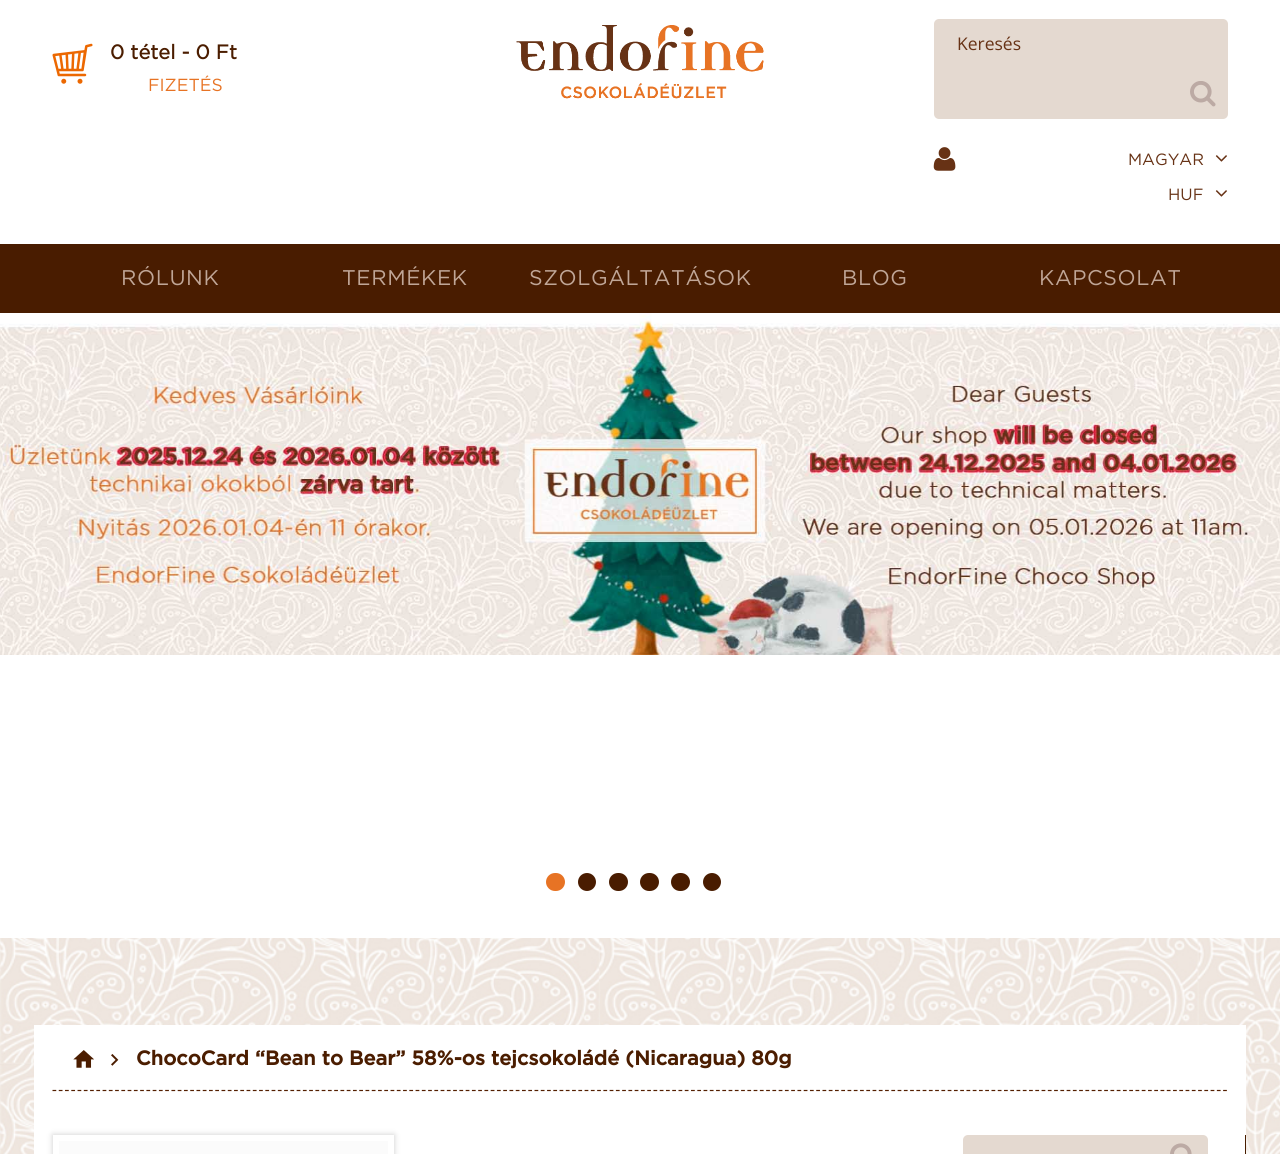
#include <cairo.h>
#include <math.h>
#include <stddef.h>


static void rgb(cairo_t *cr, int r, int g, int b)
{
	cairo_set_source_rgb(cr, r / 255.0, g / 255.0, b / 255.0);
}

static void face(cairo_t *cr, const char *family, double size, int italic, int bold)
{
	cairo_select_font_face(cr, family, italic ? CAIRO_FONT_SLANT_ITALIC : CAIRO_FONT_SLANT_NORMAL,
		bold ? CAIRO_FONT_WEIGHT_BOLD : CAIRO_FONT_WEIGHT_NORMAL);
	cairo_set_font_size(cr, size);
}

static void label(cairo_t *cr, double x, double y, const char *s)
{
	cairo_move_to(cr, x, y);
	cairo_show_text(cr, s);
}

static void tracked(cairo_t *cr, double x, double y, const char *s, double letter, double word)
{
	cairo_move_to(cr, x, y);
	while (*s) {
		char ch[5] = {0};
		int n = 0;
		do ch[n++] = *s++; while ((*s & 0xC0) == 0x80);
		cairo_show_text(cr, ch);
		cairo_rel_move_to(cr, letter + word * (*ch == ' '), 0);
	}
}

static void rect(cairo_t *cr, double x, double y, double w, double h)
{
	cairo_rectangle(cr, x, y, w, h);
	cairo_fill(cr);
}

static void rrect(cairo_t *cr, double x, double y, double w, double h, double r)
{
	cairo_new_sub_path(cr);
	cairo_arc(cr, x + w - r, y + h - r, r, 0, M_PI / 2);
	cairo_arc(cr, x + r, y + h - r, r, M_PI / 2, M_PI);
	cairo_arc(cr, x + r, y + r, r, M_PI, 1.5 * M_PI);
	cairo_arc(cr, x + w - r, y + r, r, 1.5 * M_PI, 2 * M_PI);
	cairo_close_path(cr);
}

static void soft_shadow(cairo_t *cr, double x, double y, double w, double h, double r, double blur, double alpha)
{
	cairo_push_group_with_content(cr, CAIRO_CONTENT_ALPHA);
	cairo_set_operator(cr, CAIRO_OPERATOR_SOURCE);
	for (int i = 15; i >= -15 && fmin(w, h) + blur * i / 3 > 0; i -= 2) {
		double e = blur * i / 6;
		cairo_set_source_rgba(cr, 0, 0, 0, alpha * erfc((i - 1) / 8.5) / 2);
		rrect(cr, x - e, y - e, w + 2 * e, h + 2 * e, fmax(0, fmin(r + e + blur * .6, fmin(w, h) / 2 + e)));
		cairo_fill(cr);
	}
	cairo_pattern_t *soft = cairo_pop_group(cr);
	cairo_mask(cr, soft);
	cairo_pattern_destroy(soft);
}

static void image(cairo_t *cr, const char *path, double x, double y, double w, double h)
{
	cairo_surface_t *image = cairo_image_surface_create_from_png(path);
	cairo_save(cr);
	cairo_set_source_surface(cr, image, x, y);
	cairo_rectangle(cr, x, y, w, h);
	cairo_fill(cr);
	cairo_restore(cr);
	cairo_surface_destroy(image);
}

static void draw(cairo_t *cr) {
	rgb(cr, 255, 255, 255);
	cairo_paint(cr);
	image(cr, "image0.png", 52, 43, 41, 41);
	face(cr, "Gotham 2", 20, 0, 1);
	rgb(cr, 75, 29, 0);
	label(cr, 110, 59, "0 tétel - 0 Ft");
	face(cr, "Gotham", 17.5, 0, 0);
	rgb(cr, 231, 115, 36);
	label(cr, 148, 91, "FIZETÉS");
	image(cr, "image1.png", 516, 25, 248, 74);
	rgb(cr, 228, 217, 208);
	rrect(cr, 934, 19, 294, 100, 5);
	cairo_fill(cr);
	face(cr, "Open Sans", 17.5, 0, 0);
	rgb(cr, 103, 50, 21);
	label(cr, 957, 50, "Keresés");
	image(cr, "image2.png", 1190, 81, 26, 26);
	image(cr, "image3.png", 933, 147, 23, 24);
	face(cr, "Gotham", 16.25, 0, 0);
	label(cr, 1128, 165, "MAGYAR");
	image(cr, "image4.png", 1215, 155, 12, 7);
	label(cr, 1168, 200, "HUF");
	image(cr, "image4.png", 1215, 190, 12, 7);
	rgb(cr, 73, 28, 0);
	rect(cr, 0, 244, 1280, 69);
	face(cr, "Gotham", 21.25, 0, 0);
	rgb(cr, 192, 166, 151);
	tracked(cr, 121, 285, "RÓLUNK", 0.6, 0);
	tracked(cr, 342, 285, "TERMÉKEK", 0.6, 0);
	tracked(cr, 529, 285, "SZOLGÁLTATÁSOK", 0.6, 0);
	tracked(cr, 842, 285, "BLOG", 0.6, 0);
	tracked(cr, 1039, 285, "KAPCSOLAT", 0.6, 0);
	image(cr, "image5.png", 0, 313, 1280, 342);
	rgb(cr, 231, 115, 36);
	rrect(cr, 546, 873, 19, 18, 9);
	cairo_fill(cr);
	rgb(cr, 73, 28, 0);
	cairo_arc(cr, 587, 882, 9, 0, 2 * M_PI);
	cairo_fill(cr);
	rrect(cr, 609, 873, 19, 18, 9);
	cairo_fill(cr);
	rrect(cr, 640, 873, 19, 18, 9);
	cairo_fill(cr);
	rrect(cr, 671, 873, 19, 18, 9);
	cairo_fill(cr);
	cairo_arc(cr, 712, 882, 9, 0, 2 * M_PI);
	cairo_fill(cr);
	image(cr, "image9.png", 0, 938, 1280, 216);
	rgb(cr, 255, 255, 255);
	rect(cr, 34, 1025, 1212, 129);
	cairo_new_path(cr);
	cairo_move_to(cr, 52.5, 1090.5);
	cairo_line_to(cr, 1227.5, 1090.5);
	rgb(cr, 83, 30, 0);
	cairo_set_line_width(cr, 1.2);
	cairo_set_dash(cr, (double[]){3.75, 2.51}, 2, 0);
	cairo_stroke(cr);
	image(cr, "image6.png", 73, 1050, 21, 18);
	image(cr, "image7.png", 111, 1054, 8, 12);
	face(cr, "Gotham", 20, 0, 1);
	rgb(cr, 75, 29, 0);
	label(cr, 136, 1065, "ChocoCard “Bean to Bear” 58%-os tejcsokoládé (Nicaragua) 80g");
	rgb(cr, 204, 204, 204);
	soft_shadow(cr, 53, 1135, 341, 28, 0, 3, 1);
	rgb(cr, 255, 255, 255);
	rect(cr, 53, 1135, 341, 19);
	rgb(cr, 251, 251, 251);
	rect(cr, 59, 1141, 329, 13);
	rgb(cr, 72, 29, 0);
	rect(cr, 1245, 1135, 1, 19);
	rgb(cr, 228, 217, 208);
	rrect(cr, 963, 1135, 245, 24, 5);
	cairo_fill(cr);
	image(cr, "image8.png", 1170, 1143, 22, 11);
}

int main(void) {
	cairo_surface_t *surface = cairo_image_surface_create(CAIRO_FORMAT_RGB24, 1280, 1154);
	cairo_t *cr = cairo_create(surface);
	cairo_font_options_t *options = cairo_font_options_create();
	cairo_font_options_set_hint_metrics(options, CAIRO_HINT_METRICS_OFF);
	cairo_font_options_set_hint_style(options, CAIRO_HINT_STYLE_NONE);
	cairo_set_font_options(cr, options);
	cairo_set_miter_limit(cr, 4);
	draw(cr);
	cairo_surface_write_to_png(surface, "render.png");
	cairo_font_options_destroy(options);
	cairo_destroy(cr);
	cairo_surface_destroy(surface);
	return 0;
}
